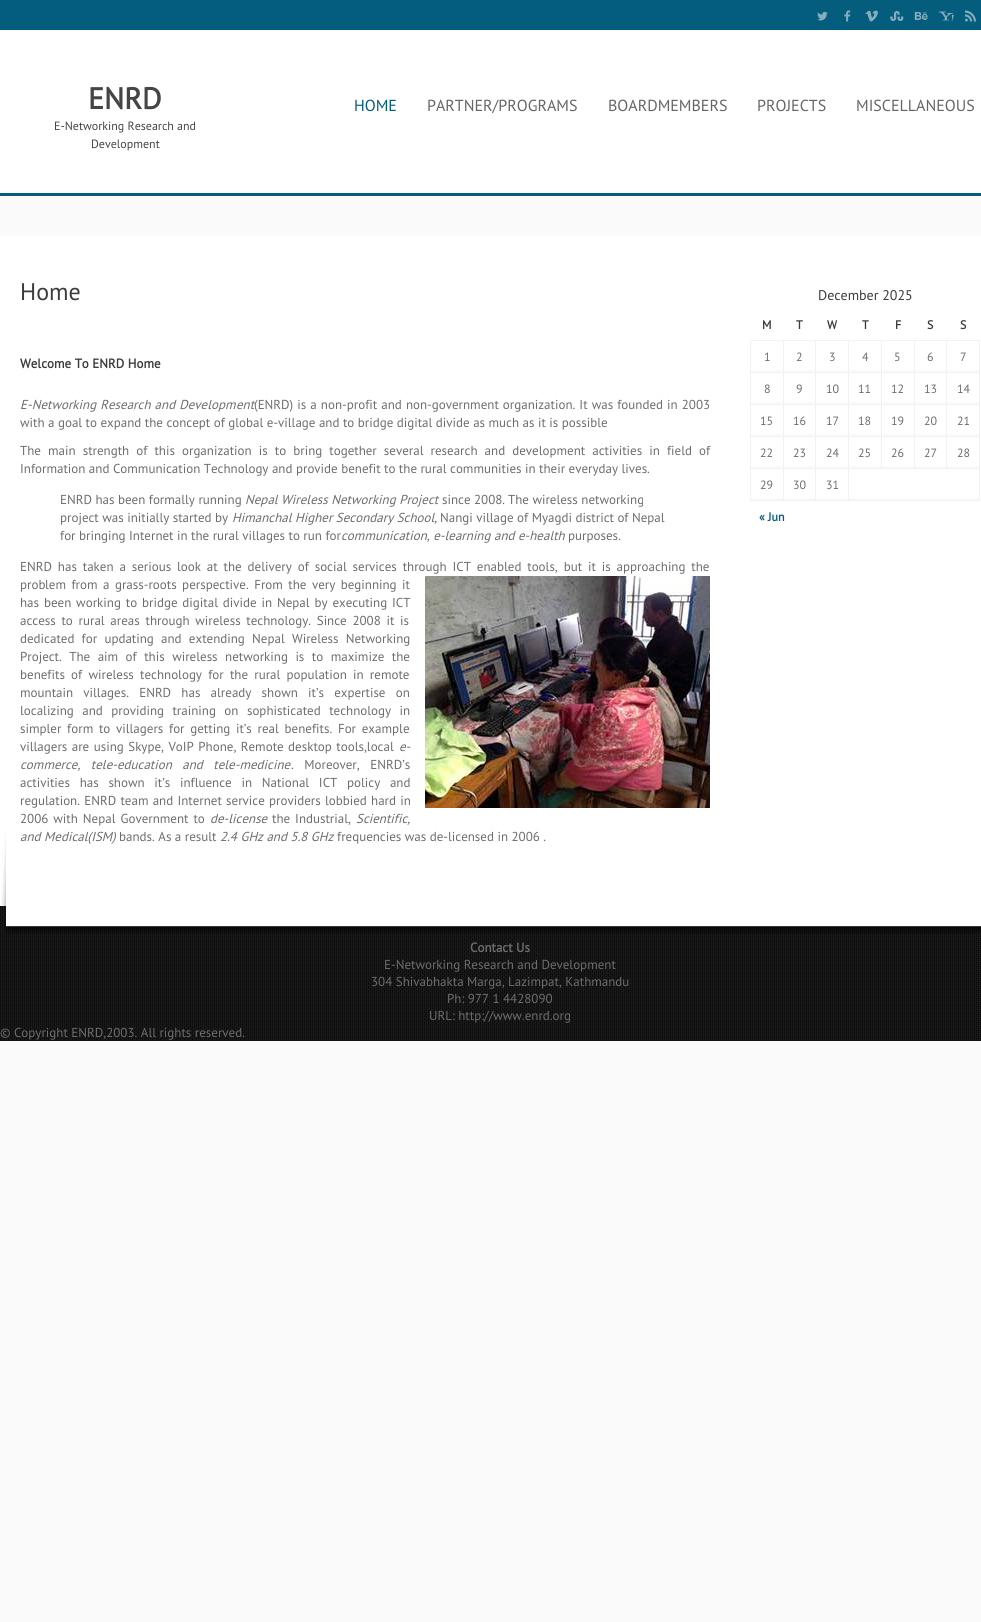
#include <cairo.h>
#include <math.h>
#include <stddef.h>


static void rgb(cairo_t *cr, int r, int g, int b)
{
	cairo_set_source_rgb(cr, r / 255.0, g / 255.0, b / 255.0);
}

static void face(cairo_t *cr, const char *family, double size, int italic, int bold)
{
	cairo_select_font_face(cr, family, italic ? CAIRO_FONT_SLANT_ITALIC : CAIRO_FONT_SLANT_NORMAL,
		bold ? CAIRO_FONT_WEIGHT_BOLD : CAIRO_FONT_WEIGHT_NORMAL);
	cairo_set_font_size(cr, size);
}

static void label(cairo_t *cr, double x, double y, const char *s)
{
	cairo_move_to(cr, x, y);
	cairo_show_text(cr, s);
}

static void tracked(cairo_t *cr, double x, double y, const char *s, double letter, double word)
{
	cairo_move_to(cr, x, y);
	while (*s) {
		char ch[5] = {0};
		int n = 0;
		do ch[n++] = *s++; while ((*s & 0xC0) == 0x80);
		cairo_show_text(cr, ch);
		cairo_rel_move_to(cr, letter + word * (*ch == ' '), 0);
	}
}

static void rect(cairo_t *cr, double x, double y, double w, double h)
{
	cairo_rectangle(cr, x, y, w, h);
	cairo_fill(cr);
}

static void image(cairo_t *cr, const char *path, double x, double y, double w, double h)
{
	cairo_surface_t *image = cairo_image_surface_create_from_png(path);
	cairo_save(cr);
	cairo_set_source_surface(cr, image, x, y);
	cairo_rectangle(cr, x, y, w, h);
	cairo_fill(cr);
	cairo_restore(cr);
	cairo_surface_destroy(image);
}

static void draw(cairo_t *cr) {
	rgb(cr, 250, 250, 250);
	cairo_paint(cr);
	rgb(cr, 5, 93, 126);
	rect(cr, 0, 0, 981, 30);
	image(cr, "image0.png", 817, 11, 11, 10);
	image(cr, "image1.png", 844, 10, 7, 12);
	image(cr, "image2.png", 865, 10, 13, 12);
	image(cr, "image3.png", 890, 11, 14, 11);
	image(cr, "image4.png", 914, 12, 14, 9);
	image(cr, "image5.png", 938, 11, 16, 10);
	image(cr, "image6.png", 965, 10, 11, 12);
	rgb(cr, 255, 255, 255);
	rect(cr, 0, 30, 981, 163);
	face(cr, "PT Sans", 30, 0, 1);
	rgb(cr, 69, 69, 69);
	label(cr, 88, 109, "ENRD");
	face(cr, "PT Sans", 12, 0, 0);
	label(cr, 54, 130, "E-Networking Research and");
	label(cr, 91, 148, "Development");
	face(cr, "PT Sans", 16, 0, 0);
	rgb(cr, 5, 93, 126);
	label(cr, 354, 111, "HOME");
	rgb(cr, 102, 102, 102);
	label(cr, 427, 111, "PARTNER/PROGRAMS");
	label(cr, 608, 111, "BOARDMEMBERS");
	label(cr, 757, 111, "PROJECTS");
	label(cr, 856, 111, "MISCELLANEOUS");
	rgb(cr, 5, 93, 126);
	rect(cr, 0, 193, 981, 3);
	rgb(cr, 255, 255, 255);
	rect(cr, 0, 236, 981, 670);
	face(cr, "PT Sans", 24, 0, 0);
	rgb(cr, 60, 60, 60);
	label(cr, 20, 300, "Home");
	face(cr, "PT Sans", 13, 0, 1);
	label(cr, 20, 368, "Welcome To ENRD Home");
	face(cr, "PT Sans", 13, 1, 0);
	rgb(cr, 110, 109, 109);
	tracked(cr, 20, 409, "E-Networking Research and Developm", 0, 0.6);
	label(cr, 236, 409, "ent");
	face(cr, "PT Sans", 13, 0, 0);
	tracked(cr, 254, 409, "(ENRD) is a non-profit and non-government organization. It was founded in 2003", 0, 0.6);
	label(cr, 20, 427, "with a goal to expand the concept of global e-village and to bridge digital divide as much as it is possible");
	tracked(cr, 20, 455, "The main strength of this organization is to bring together several research and development activities in field of", 0, 3.6);
	label(cr, 20, 473, "Information and Communication Technology and provide benefit to the rural communities in their everyday lives.");
	label(cr, 60, 504, "ENRD has been formally running");
	face(cr, "PT Sans", 13, 1, 0);
	label(cr, 245, 504, "Nepal Wireless Networking Project");
	face(cr, "PT Sans", 13, 0, 0);
	label(cr, 442, 504, "since 2008");
	face(cr, "PT Sans", 13, 1, 0);
	label(cr, 502, 504, ".");
	face(cr, "PT Sans", 13, 0, 0);
	label(cr, 508, 504, "The wireless networking");
	label(cr, 60, 522, "project was initially started by");
	face(cr, "PT Sans", 13, 1, 0);
	label(cr, 232, 522, "Himanchal Higher Secondary School,");
	face(cr, "PT Sans", 13, 0, 0);
	label(cr, 440, 522, "Nangi village of Myagdi district of Nepal");
	label(cr, 60, 540, "for bringing Internet in the rural villages to run for");
	face(cr, "PT Sans", 13, 1, 0);
	label(cr, 341, 540, "communication, e-learning and e-health");
	face(cr, "PT Sans", 13, 0, 0);
	label(cr, 568, 540, "purposes");
	face(cr, "PT Sans", 13, 1, 0);
	label(cr, 618, 540, ".");
	face(cr, "PT Sans", 13, 0, 0);
	tracked(cr, 20, 571, "ENRD has taken a serious look at the delivery of social services through ICT enabled tools, but it is approaching the", 0, 2.4);
	label(cr, 20, 589, "prob");
	tracked(cr, 45, 589, "lem from a grass-roots perspective. From the very beginning it", 0, 2);
	image(cr, "image7.png", 425, 576, 285, 232);
	tracked(cr, 20, 607, "has been working to bridge digital divide in Nepal by executing ICT", 0, 1.4);
	tracked(cr, 20, 625, "access to rural areas through wireless technology. Since 2008 it is", 0, 2.25);
	tracked(cr, 20, 643, "dedicated for updating and extending Nepal Wireless Networking", 0, 3.75);
	tracked(cr, 20, 661, "Project. The aim of this wireless networking is to maximize the", 0, 4);
	tracked(cr, 20, 679, "benefits of wireless technology for the rural population in remote", 0, 2.75);
	tracked(cr, 20, 697, "mountain villages. ENRD has already shown it’s expertise on", 0, 6.75);
	tracked(cr, 20, 715, "localizing and providing training on sophisticated technology in", 0, 5);
	tracked(cr, 20, 733, "simpler form to villagers for getting it’s real benefits. For example", 0, 2.25);
	tracked(cr, 20, 751, "villagers are using Skype, VoIP Phone, Remote desktop tools,local", 0, 1);
	face(cr, "PT Sans", 13, 1, 0);
	label(cr, 399, 751, "e-");
	tracked(cr, 20, 769, "commerce, tele-education and tele-medicine", 0, 7);
	face(cr, "PT Sans", 13, 0, 0);
	tracked(cr, 291, 769, ". Moreover, ENRD’s", 0, 7);
	tracked(cr, 20, 787, "activities has shown it’s influence in National ICT policy and", 0, 6.25);
	tracked(cr, 20, 805, "regulation. ENRD team and Internet service providers lobbied hard in", 0, 0.75);
	tracked(cr, 20, 823, "2006 with Nepal Government to", 0, 1.5);
	face(cr, "PT Sans", 13, 1, 0);
	label(cr, 210, 823, "de-license");
	face(cr, "PT Sans", 13, 0, 0);
	tracked(cr, 272, 823, "the Industrial,", 0, 1.5);
	face(cr, "PT Sans", 13, 1, 0);
	label(cr, 356, 823, "Scientific,");
	label(cr, 20, 841, "and Medical(ISM)");
	face(cr, "PT Sans", 13, 0, 0);
	label(cr, 119, 841, "bands. As a result");
	face(cr, "PT Sans", 13, 1, 0);
	label(cr, 220, 841, "2.4 GHz and 5.8 GHz");
	face(cr, "PT Sans", 13, 0, 0);
	label(cr, 337, 841, "frequencies was de-licensed in 2006 .");
	face(cr, "PT Sans", 14, 0, 0);
	rgb(cr, 60, 60, 60);
	label(cr, 818, 300, "December 2025");
	face(cr, "PT Sans", 12, 0, 1);
	label(cr, 762, 329, "M");
	label(cr, 796, 329, "T");
	label(cr, 827, 329, "W");
	label(cr, 862, 329, "T");
	label(cr, 895, 329, "F");
	label(cr, 927, 329, "S");
	label(cr, 960, 329, "S");
	rgb(cr, 250, 249, 249);
	rect(cr, 751, 370, 229, 2);
	rgb(cr, 243, 242, 242);
	rect(cr, 946, 340, 34, 1);
	rect(cr, 946, 372, 34, 1);
	rgb(cr, 250, 249, 249);
	rect(cr, 751, 402, 229, 2);
	rgb(cr, 243, 242, 242);
	rect(cr, 946, 404, 34, 1);
	rgb(cr, 250, 249, 249);
	rect(cr, 751, 434, 229, 2);
	rgb(cr, 243, 242, 242);
	rect(cr, 946, 436, 34, 1);
	rgb(cr, 250, 249, 249);
	rect(cr, 751, 466, 229, 2);
	rgb(cr, 243, 242, 242);
	rect(cr, 848, 468, 132, 1);
	rect(cr, 946, 436, 1, 33);
	rect(cr, 914, 436, 33, 1);
	rect(cr, 946, 404, 1, 33);
	rect(cr, 914, 404, 33, 1);
	rect(cr, 946, 372, 1, 33);
	rect(cr, 914, 372, 33, 1);
	rect(cr, 946, 340, 1, 33);
	rect(cr, 914, 340, 33, 1);
	rect(cr, 914, 436, 1, 33);
	rect(cr, 881, 436, 34, 1);
	rect(cr, 914, 404, 1, 33);
	rect(cr, 881, 404, 34, 1);
	rect(cr, 914, 372, 1, 33);
	rect(cr, 881, 372, 34, 1);
	rect(cr, 914, 340, 1, 33);
	rect(cr, 881, 340, 34, 1);
	rect(cr, 881, 436, 1, 33);
	rect(cr, 848, 436, 34, 1);
	rect(cr, 881, 404, 1, 33);
	rect(cr, 848, 404, 34, 1);
	rect(cr, 881, 372, 1, 33);
	rect(cr, 848, 372, 34, 1);
	rect(cr, 881, 340, 1, 33);
	rect(cr, 848, 340, 34, 1);
	rgb(cr, 250, 249, 249);
	rect(cr, 751, 498, 229, 2);
	rgb(cr, 243, 242, 242);
	rect(cr, 979, 468, 1, 33);
	rect(cr, 848, 500, 132, 1);
	rect(cr, 848, 468, 1, 33);
	rect(cr, 815, 468, 34, 1);
	rect(cr, 848, 436, 1, 33);
	rect(cr, 815, 436, 34, 1);
	rect(cr, 848, 404, 1, 33);
	rect(cr, 815, 404, 34, 1);
	rect(cr, 848, 372, 1, 33);
	rect(cr, 815, 372, 34, 1);
	rect(cr, 848, 340, 1, 33);
	rect(cr, 815, 340, 34, 1);
	rect(cr, 815, 500, 34, 1);
	rect(cr, 815, 468, 1, 33);
	rect(cr, 783, 468, 33, 1);
	rect(cr, 815, 436, 1, 33);
	rect(cr, 783, 436, 33, 1);
	rect(cr, 815, 404, 1, 33);
	rect(cr, 783, 404, 33, 1);
	rect(cr, 815, 372, 1, 33);
	rect(cr, 783, 372, 33, 1);
	rect(cr, 815, 340, 1, 33);
	rect(cr, 783, 340, 33, 1);
	rect(cr, 783, 500, 33, 1);
	rect(cr, 783, 468, 1, 33);
	rect(cr, 750, 468, 34, 1);
	rect(cr, 783, 436, 1, 33);
	rect(cr, 750, 436, 34, 1);
	rect(cr, 783, 404, 1, 33);
	rect(cr, 750, 404, 34, 1);
	rect(cr, 783, 372, 1, 33);
	rect(cr, 750, 372, 34, 1);
	rect(cr, 783, 340, 1, 33);
	rect(cr, 750, 340, 34, 1);
	rect(cr, 750, 500, 34, 1);
	rect(cr, 750, 468, 1, 33);
	rect(cr, 750, 436, 1, 33);
	rect(cr, 750, 404, 1, 33);
	rect(cr, 750, 372, 1, 33);
	rect(cr, 750, 340, 1, 33);
	face(cr, "PT Sans", 12, 0, 0);
	rgb(cr, 110, 109, 109);
	label(cr, 764, 361, "1");
	label(cr, 796, 361, "2");
	label(cr, 829, 361, "3");
	label(cr, 862, 361, "4");
	label(cr, 894, 361, "5");
	label(cr, 927, 361, "6");
	rgb(cr, 243, 242, 242);
	rect(cr, 979, 436, 1, 33);
	rect(cr, 979, 404, 1, 33);
	rect(cr, 979, 372, 1, 33);
	rect(cr, 979, 340, 1, 33);
	rgb(cr, 110, 109, 109);
	label(cr, 960, 361, "7");
	label(cr, 764, 393, "8");
	label(cr, 796, 393, "9");
	label(cr, 826, 393, "10");
	label(cr, 858, 393, "11");
	label(cr, 891, 393, "12");
	label(cr, 924, 393, "13");
	label(cr, 957, 393, "14");
	label(cr, 760, 425, "15");
	label(cr, 793, 425, "16");
	label(cr, 826, 425, "17");
	label(cr, 858, 425, "18");
	label(cr, 891, 425, "19");
	label(cr, 924, 425, "20");
	label(cr, 957, 425, "21");
	label(cr, 760, 457, "22");
	label(cr, 793, 457, "23");
	label(cr, 826, 457, "24");
	label(cr, 858, 457, "25");
	label(cr, 891, 457, "26");
	label(cr, 924, 457, "27");
	label(cr, 957, 457, "28");
	label(cr, 760, 489, "29");
	label(cr, 793, 489, "30");
	label(cr, 826, 489, "31");
	face(cr, "PT Sans", 12, 0, 1);
	rgb(cr, 5, 93, 126);
	label(cr, 759, 521, "« Jun");
	image(cr, "image8.png", 0, 906, 981, 135);
	image(cr, "image9.png", 4, 906, 977, 28);
	image(cr, "image10.png", 1, 832, 5, 74);
	face(cr, "PT Sans", 13, 0, 1);
	rgb(cr, 110, 109, 109);
	label(cr, 470, 952, "Contact Us");
	face(cr, "PT Sans", 13, 0, 0);
	label(cr, 384, 969, "E-Networking Research and Development");
	label(cr, 371, 986, "304 Shivabhakta Marga, Lazimpat, Kathmandu");
	label(cr, 447, 1003, "Ph: 977 1 4428090");
	label(cr, 429, 1020, "URL: http://www.enrd.org");
	label(cr, 0, 1037, "© Copyright ENRD,2003. All rights reserved.");
}

int main(void) {
	cairo_surface_t *surface = cairo_image_surface_create(CAIRO_FORMAT_RGB24, 981, 1622);
	cairo_t *cr = cairo_create(surface);
	cairo_font_options_t *options = cairo_font_options_create();
	cairo_font_options_set_hint_metrics(options, CAIRO_HINT_METRICS_OFF);
	cairo_font_options_set_hint_style(options, CAIRO_HINT_STYLE_NONE);
	cairo_set_font_options(cr, options);
	cairo_set_miter_limit(cr, 4);
	draw(cr);
	cairo_surface_write_to_png(surface, "render.png");
	cairo_font_options_destroy(options);
	cairo_destroy(cr);
	cairo_surface_destroy(surface);
	return 0;
}
